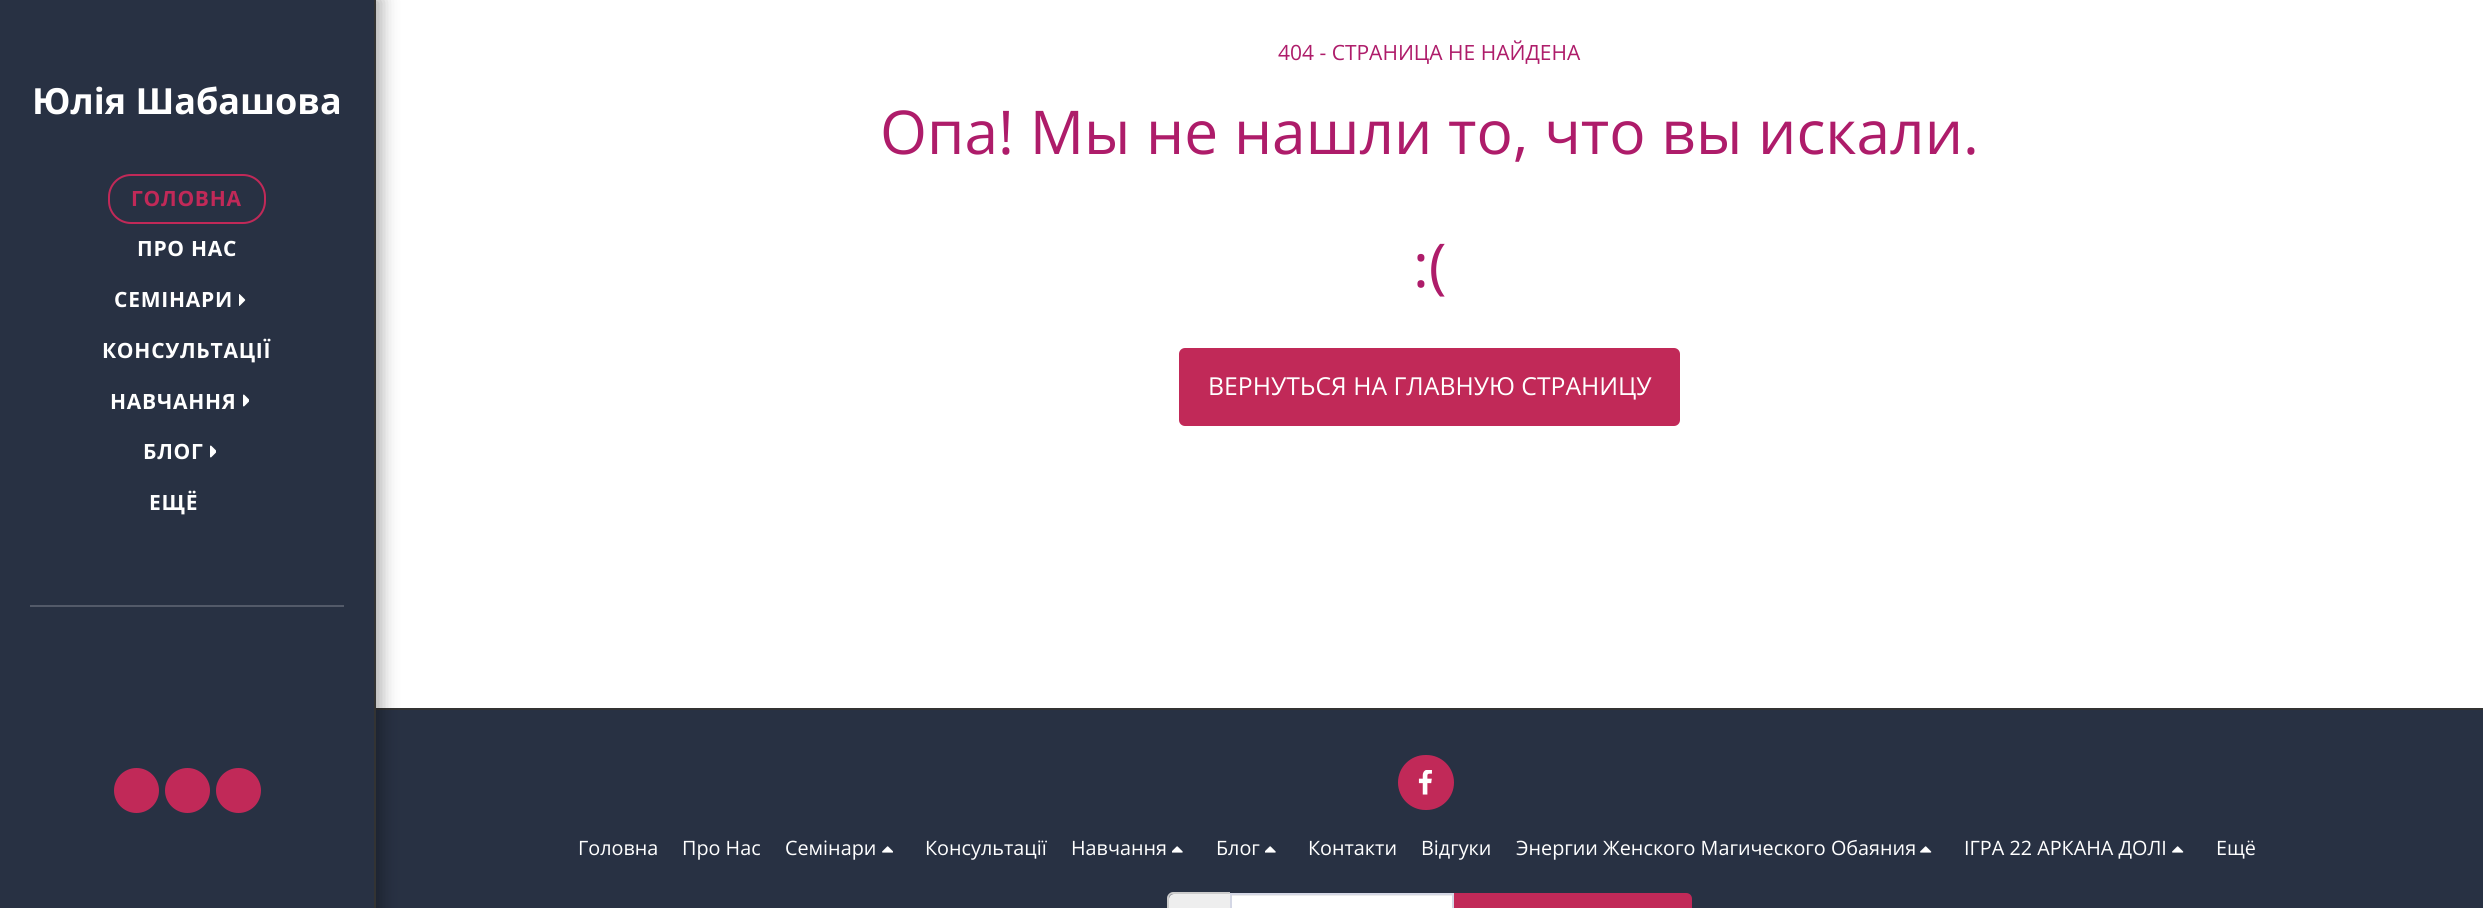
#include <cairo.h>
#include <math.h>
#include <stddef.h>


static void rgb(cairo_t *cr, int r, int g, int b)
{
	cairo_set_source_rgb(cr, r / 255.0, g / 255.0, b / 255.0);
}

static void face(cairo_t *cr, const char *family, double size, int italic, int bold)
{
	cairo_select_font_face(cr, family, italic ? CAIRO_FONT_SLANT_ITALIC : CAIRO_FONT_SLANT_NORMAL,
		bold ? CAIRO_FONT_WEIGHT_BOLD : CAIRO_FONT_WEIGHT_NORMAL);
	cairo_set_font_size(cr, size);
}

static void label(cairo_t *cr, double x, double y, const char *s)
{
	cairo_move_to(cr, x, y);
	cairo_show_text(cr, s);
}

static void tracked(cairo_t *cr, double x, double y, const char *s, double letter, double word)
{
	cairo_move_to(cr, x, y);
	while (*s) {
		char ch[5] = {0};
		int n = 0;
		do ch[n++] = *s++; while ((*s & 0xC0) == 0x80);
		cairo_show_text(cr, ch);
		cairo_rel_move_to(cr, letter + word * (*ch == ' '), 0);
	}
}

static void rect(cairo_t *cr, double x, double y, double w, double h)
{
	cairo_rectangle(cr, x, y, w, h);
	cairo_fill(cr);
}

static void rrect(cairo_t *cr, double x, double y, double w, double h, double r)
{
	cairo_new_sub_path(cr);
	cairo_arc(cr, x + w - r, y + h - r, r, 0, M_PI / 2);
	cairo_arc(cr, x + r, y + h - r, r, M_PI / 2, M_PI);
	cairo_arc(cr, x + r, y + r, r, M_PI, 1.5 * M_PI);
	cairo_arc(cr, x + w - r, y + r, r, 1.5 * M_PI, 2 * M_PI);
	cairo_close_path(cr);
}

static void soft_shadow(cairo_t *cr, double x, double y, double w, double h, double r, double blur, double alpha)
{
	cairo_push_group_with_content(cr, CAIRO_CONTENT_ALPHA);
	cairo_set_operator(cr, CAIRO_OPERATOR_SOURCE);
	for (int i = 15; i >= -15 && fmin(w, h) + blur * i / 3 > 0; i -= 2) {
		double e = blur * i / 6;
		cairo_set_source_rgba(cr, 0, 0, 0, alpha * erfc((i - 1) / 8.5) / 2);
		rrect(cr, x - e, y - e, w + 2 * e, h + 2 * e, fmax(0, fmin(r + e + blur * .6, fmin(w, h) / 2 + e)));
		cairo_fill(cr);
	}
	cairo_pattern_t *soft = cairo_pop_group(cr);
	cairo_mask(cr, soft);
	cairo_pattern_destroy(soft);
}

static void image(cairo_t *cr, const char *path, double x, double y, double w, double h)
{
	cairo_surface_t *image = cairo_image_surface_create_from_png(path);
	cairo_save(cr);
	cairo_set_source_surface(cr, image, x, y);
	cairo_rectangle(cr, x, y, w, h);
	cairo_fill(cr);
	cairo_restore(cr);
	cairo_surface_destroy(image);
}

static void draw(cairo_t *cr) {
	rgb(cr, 255, 255, 255);
	cairo_paint(cr);
	rgb(cr, 51, 51, 51);
	rect(cr, 375, 708, 2108, 2);
	rgb(cr, 40, 49, 67);
	rect(cr, 376, 710, 2107, 198);
	rgb(cr, 0, 0, 0);
	soft_shadow(cr, 0, -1, 381, 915, 0, 9, 0.35);
	rgb(cr, 40, 49, 67);
	rect(cr, 0, 0, 374, 908);
	rgb(cr, 51, 51, 51);
	rect(cr, 374, 0, 2, 908);
	face(cr, "Open Sans", 36, 0, 1);
	rgb(cr, 255, 255, 255);
	label(cr, 32, 114, "Юлія Шабашова");
	rrect(cr, 109, 175, 156, 48, 22);
	rgb(cr, 193, 41, 88);
	cairo_stroke(cr);
	face(cr, "Open Sans", 21, 0, 1);
	tracked(cr, 131, 206, "ГОЛОВНА", 0.75, 0);
	rgb(cr, 255, 255, 255);
	tracked(cr, 137, 256, "ПРО НАС", 0.75, 0);
	tracked(cr, 114, 307, "СЕМІНАРИ", 0.75, 0);
	image(cr, "image0.png", 239, 294, 7, 12);
	tracked(cr, 102, 358, "КОНСУЛЬТАЦІЇ", 0.75, 0);
	tracked(cr, 110, 409, "НАВЧАННЯ", 0.75, 0);
	image(cr, "image1.png", 243, 394, 6, 13);
	tracked(cr, 143, 459, "БЛОГ", 0.75, 0);
	image(cr, "image1.png", 210, 445, 6, 13);
	tracked(cr, 149, 510, "ЕЩЁ", 0.75, 0);
	rgb(cr, 83, 90, 105);
	rect(cr, 30, 605, 314, 2);
	rgb(cr, 193, 41, 88);
	cairo_new_path(cr);
	cairo_arc(cr, 136.5, 790.5, 22.5, 0, 2 * M_PI);
	cairo_fill(cr);
	cairo_arc(cr, 187.5, 790.5, 22.5, 0, 2 * M_PI);
	cairo_fill(cr);
	cairo_arc(cr, 238.5, 790.5, 22.5, 0, 2 * M_PI);
	cairo_fill(cr);
	face(cr, "Open Sans", 21, 0, 0);
	rgb(cr, 174, 28, 106);
	label(cr, 1278, 60, "404 - СТРАНИЦА НЕ НАЙДЕНА");
	face(cr, "Open Sans", 60.4, 0, 0);
	label(cr, 880, 154, "Опа! Мы не нашли то, что вы искали.");
	label(cr, 1413, 287, ":(");
	rgb(cr, 193, 41, 88);
	rrect(cr, 1180, 349, 499, 76, 5);
	cairo_fill_preserve(cr);
	cairo_stroke(cr);
	face(cr, "Open Sans", 24.75, 0, 0);
	rgb(cr, 255, 255, 255);
	label(cr, 1208, 395, "ВЕРНУТЬСЯ НА ГЛАВНУЮ СТРАНИЦУ");
	rgb(cr, 193, 41, 88);
	rrect(cr, 1399, 756, 54, 53, 26.5);
	cairo_fill_preserve(cr);
	cairo_stroke(cr);
	image(cr, "image2.png", 1418, 770, 14, 25);
	face(cr, "Open Sans", 19.8, 0, 0);
	rgb(cr, 255, 255, 255);
	label(cr, 578, 855, "Головна");
	label(cr, 682, 855, "Про Нас");
	label(cr, 785, 855, "Семінари");
	image(cr, "image3.png", 882, 846, 11, 7);
	label(cr, 925, 855, "Консультації");
	label(cr, 1071, 855, "Навчання");
	image(cr, "image4.png", 1172, 846, 11, 7);
	label(cr, 1216, 855, "Блог");
	image(cr, "image4.png", 1265, 846, 11, 7);
	label(cr, 1308, 855, "Контакти");
	label(cr, 1421, 855, "Відгуки");
	label(cr, 1516, 855, "Энергии Женского Магического Обаяния");
	image(cr, "image5.png", 1920, 846, 12, 7);
	label(cr, 1964, 855, "ІГРА 22 АРКАНА ДОЛІ");
	image(cr, "image5.png", 2172, 846, 12, 7);
	label(cr, 2216, 855, "Ещё");
	rgb(cr, 238, 238, 238);
	cairo_new_path(cr);
	cairo_move_to(cr, 1174, 894);
	cairo_line_to(cr, 1230, 894);
	cairo_line_to(cr, 1230, 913);
	cairo_line_to(cr, 1174, 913);
	cairo_curve_to(cr, 1171, 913, 1169, 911, 1169, 908);
	cairo_line_to(cr, 1169, 899);
	cairo_curve_to(cr, 1169, 896, 1171, 894, 1174, 894);
	cairo_close_path(cr);
	cairo_fill(cr);
	rgb(cr, 204, 204, 204);
	cairo_set_fill_rule(cr, CAIRO_FILL_RULE_EVEN_ODD);
	cairo_new_path(cr);
	cairo_move_to(cr, 1173, 892);
	cairo_line_to(cr, 1230, 892);
	cairo_line_to(cr, 1230, 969);
	cairo_line_to(cr, 1173, 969);
	cairo_curve_to(cr, 1170, 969, 1167, 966, 1167, 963);
	cairo_line_to(cr, 1167, 898);
	cairo_curve_to(cr, 1167, 895, 1170, 892, 1173, 892);
	cairo_close_path(cr);
	cairo_move_to(cr, 1173, 894);
	cairo_line_to(cr, 1230, 894);
	cairo_line_to(cr, 1230, 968);
	cairo_curve_to(cr, 1223, 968, 1173, 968, 1170, 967);
	cairo_line_to(cr, 1169, 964);
	cairo_line_to(cr, 1169, 898);
	cairo_line_to(cr, 1170, 895);
	cairo_close_path(cr);
	cairo_fill(cr);
	rgb(cr, 255, 255, 255);
	rect(cr, 1232, 896, 220, 12);
	rgb(cr, 236, 236, 236);
	rect(cr, 1232, 895, 220, 1);
	rgb(cr, 193, 41, 88);
	cairo_new_path(cr);
	cairo_move_to(cr, 1453, 894);
	cairo_line_to(cr, 1686, 894);
	cairo_curve_to(cr, 1689, 894, 1691, 896, 1691, 899);
	cairo_line_to(cr, 1691, 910);
	cairo_curve_to(cr, 1691, 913, 1689, 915, 1686, 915);
	cairo_line_to(cr, 1453, 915);
	cairo_close_path(cr);
	cairo_fill_preserve(cr);
	cairo_stroke(cr);
	cairo_rectangle(cr, 1231, 894, 222, 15);
	rgb(cr, 212, 215, 229);
	cairo_stroke(cr);
}

int main(void) {
	cairo_surface_t *surface = cairo_image_surface_create(CAIRO_FORMAT_RGB24, 2483, 908);
	cairo_t *cr = cairo_create(surface);
	cairo_font_options_t *options = cairo_font_options_create();
	cairo_font_options_set_hint_metrics(options, CAIRO_HINT_METRICS_OFF);
	cairo_font_options_set_hint_style(options, CAIRO_HINT_STYLE_NONE);
	cairo_set_font_options(cr, options);
	cairo_set_miter_limit(cr, 4);
	draw(cr);
	cairo_surface_write_to_png(surface, "render.png");
	cairo_font_options_destroy(options);
	cairo_destroy(cr);
	cairo_surface_destroy(surface);
	return 0;
}
